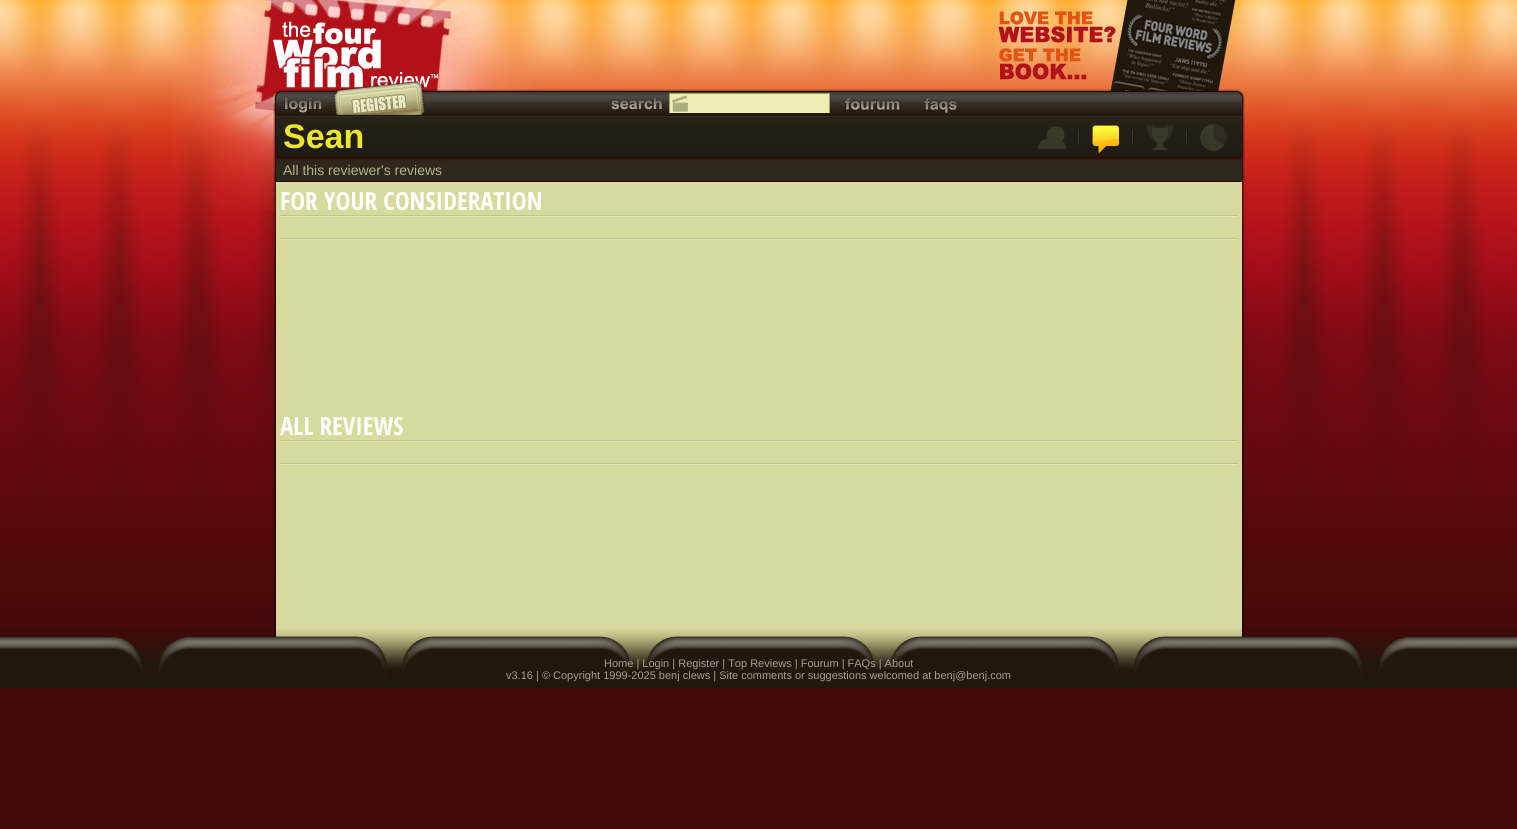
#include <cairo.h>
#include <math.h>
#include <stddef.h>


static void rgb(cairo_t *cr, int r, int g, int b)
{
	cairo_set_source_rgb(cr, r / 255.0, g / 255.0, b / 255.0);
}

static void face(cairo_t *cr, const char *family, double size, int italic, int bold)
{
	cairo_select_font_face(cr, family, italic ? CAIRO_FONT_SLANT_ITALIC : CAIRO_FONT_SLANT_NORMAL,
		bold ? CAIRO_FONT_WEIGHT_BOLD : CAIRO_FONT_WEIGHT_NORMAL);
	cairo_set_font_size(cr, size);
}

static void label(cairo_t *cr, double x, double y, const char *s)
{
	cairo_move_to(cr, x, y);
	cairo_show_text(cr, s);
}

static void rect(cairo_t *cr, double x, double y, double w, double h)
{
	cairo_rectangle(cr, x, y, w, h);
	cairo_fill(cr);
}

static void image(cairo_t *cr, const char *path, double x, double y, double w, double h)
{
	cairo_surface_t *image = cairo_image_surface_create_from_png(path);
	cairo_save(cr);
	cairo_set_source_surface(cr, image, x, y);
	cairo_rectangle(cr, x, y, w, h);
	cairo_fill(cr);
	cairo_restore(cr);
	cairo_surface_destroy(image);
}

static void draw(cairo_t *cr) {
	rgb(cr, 66, 9, 9);
	cairo_paint(cr);
	image(cr, "image0.png", 0, 0, 1517, 627);
	image(cr, "image1.png", 172, 0, 362, 210);
	image(cr, "image2.png", 998, 0, 238, 91);
	image(cr, "image3.png", 273, 89, 10, 93);
	image(cr, "image4.png", 283, 89, 952, 93);
	image(cr, "image5.png", 284, 96, 38, 17);
	image(cr, "image6.png", 329, 81, 103, 34);
	image(cr, "image7.png", 611, 96, 52, 14);
	rgb(cr, 238, 238, 179);
	rect(cr, 670, 94, 159, 19);
	image(cr, "image8.png", 672, 95, 16, 17);
	rgb(cr, 161, 161, 108);
	rect(cr, 669, 93, 161, 1);
	rect(cr, 829, 93, 1, 20);
	rect(cr, 669, 93, 1, 20);
	image(cr, "image9.png", 844, 97, 56, 14);
	image(cr, "image10.png", 924, 97, 33, 16);
	face(cr, "Liberation Sans", 34, 0, 1);
	rgb(cr, 236, 231, 44);
	label(cr, 283, 148, "Sean");
	image(cr, "image11.png", 1038, 126, 28, 23);
	image(cr, "image12.png", 1078, 130, 2, 15);
	image(cr, "image13.png", 1092, 123, 27, 30);
	image(cr, "image12.png", 1132, 130, 2, 15);
	image(cr, "image14.png", 1147, 125, 26, 25);
	image(cr, "image12.png", 1186, 130, 2, 15);
	image(cr, "image15.png", 1200, 124, 27, 27);
	face(cr, "Liberation Sans", 14, 0, 0);
	rgb(cr, 179, 179, 134);
	label(cr, 283, 175, "All this reviewer's reviews");
	image(cr, "image16.png", 1235, 89, 10, 93);
	image(cr, "image17.png", 273, 182, 972, 488);
	face(cr, "Open Sans Condensed", 25, 0, 1);
	rgb(cr, 255, 255, 255);
	label(cr, 280, 210, "FOR YOUR CONSIDERATION");
	image(cr, "image18.png", 280, 215, 958, 25);
	label(cr, 280, 435, "ALL REVIEWS");
	image(cr, "image18.png", 280, 440, 958, 25);
	image(cr, "image19.png", 0, 629, 1517, 59);
	face(cr, "Liberation Sans", 11, 0, 0);
	rgb(cr, 167, 160, 145);
	label(cr, 604, 667, "Home | Login | Register | Top Reviews | Fourum | FAQs | About");
	label(cr, 506, 679, "v3.16 | © Copyright 1999-2025 benj clews | Site comments or suggestions welcomed at benj@benj.com");
}

int main(void) {
	cairo_surface_t *surface = cairo_image_surface_create(CAIRO_FORMAT_RGB24, 1517, 829);
	cairo_t *cr = cairo_create(surface);
	cairo_font_options_t *options = cairo_font_options_create();
	cairo_font_options_set_hint_metrics(options, CAIRO_HINT_METRICS_OFF);
	cairo_font_options_set_hint_style(options, CAIRO_HINT_STYLE_NONE);
	cairo_set_font_options(cr, options);
	cairo_set_miter_limit(cr, 4);
	draw(cr);
	cairo_surface_write_to_png(surface, "render.png");
	cairo_font_options_destroy(options);
	cairo_destroy(cr);
	cairo_surface_destroy(surface);
	return 0;
}
